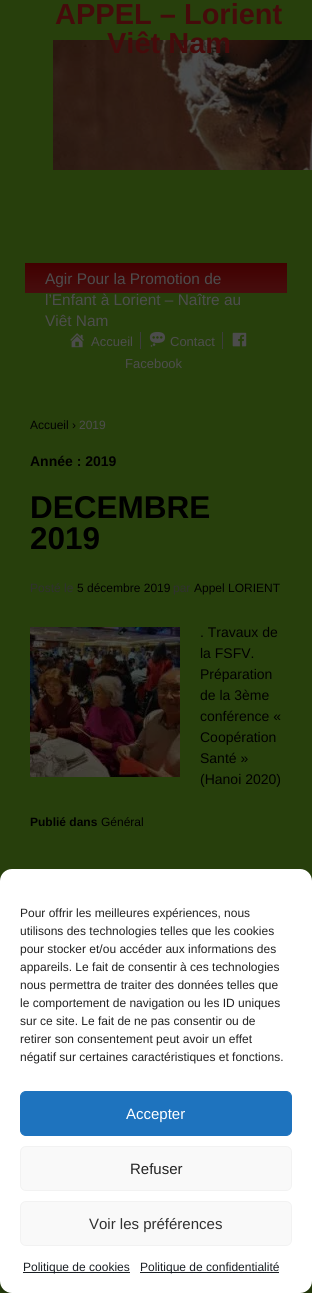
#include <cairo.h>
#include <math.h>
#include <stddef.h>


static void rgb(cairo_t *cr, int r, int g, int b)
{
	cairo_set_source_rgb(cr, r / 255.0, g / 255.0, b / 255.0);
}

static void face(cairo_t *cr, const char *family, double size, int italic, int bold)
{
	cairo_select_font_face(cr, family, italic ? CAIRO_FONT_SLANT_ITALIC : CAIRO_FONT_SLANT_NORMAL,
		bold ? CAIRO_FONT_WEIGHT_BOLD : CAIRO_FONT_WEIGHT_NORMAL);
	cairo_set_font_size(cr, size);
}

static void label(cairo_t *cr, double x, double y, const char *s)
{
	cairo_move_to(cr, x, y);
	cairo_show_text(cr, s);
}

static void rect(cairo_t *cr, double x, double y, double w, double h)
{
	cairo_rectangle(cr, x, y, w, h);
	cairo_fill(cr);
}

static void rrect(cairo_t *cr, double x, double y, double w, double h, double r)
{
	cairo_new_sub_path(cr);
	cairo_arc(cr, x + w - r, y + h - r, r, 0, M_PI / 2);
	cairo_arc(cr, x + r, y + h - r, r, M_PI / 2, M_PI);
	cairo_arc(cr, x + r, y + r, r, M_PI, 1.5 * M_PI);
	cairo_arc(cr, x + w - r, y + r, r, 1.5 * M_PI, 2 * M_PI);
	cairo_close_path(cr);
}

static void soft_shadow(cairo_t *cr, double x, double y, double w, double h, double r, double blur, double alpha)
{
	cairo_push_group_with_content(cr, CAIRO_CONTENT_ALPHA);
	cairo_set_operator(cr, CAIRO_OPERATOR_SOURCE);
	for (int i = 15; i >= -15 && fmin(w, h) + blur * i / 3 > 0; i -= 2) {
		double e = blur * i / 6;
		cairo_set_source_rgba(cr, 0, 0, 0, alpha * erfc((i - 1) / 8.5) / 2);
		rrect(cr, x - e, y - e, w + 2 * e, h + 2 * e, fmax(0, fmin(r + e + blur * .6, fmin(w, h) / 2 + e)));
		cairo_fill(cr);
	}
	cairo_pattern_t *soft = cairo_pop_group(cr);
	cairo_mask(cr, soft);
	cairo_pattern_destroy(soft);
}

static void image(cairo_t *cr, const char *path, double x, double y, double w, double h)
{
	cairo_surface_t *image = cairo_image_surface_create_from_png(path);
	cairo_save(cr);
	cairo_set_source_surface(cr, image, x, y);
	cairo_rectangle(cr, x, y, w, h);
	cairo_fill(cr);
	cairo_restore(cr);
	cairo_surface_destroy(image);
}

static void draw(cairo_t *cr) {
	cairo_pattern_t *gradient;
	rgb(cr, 39, 63, 12);
	cairo_paint(cr);
	face(cr, "Liberation Sans", 29, 0, 1);
	rgb(cr, 69, 11, 11);
	label(cr, 55, 24, "APPEL – Lorient");
	image(cr, "image0.png", 53, 40, 259, 130);
	label(cr, 107, 53, "Viêt Nam");
	gradient = cairo_pattern_create_linear(156, 263, 156, 293);
	cairo_pattern_add_color_stop_rgba(gradient, 0, 0.255, 0, 0, 1);
	cairo_pattern_add_color_stop_rgba(gradient, 1, 0.275, 0.055, 0.055, 1);
	cairo_set_source(cr, gradient);
	cairo_pattern_destroy(gradient);
	rect(cr, 25, 263, 262, 30);
	face(cr, "Liberation Sans", 15.4, 0, 0);
	rgb(cr, 77, 77, 77);
	label(cr, 45, 284, "Agir Pour la Promotion de");
	label(cr, 45, 305, "l’Enfant à Lorient – Naître au");
	label(cr, 45, 326, "Viêt Nam");
	image(cr, "image1.png", 70, 333, 14, 15);
	face(cr, "Liberation Sans", 13, 0, 0);
	label(cr, 91, 346, "Accueil");
	rgb(cr, 61, 61, 61);
	rect(cr, 140, 332, 1, 17);
	image(cr, "image2.png", 149, 331, 17, 16);
	rgb(cr, 77, 77, 77);
	label(cr, 170, 346, "Contact");
	rgb(cr, 61, 61, 61);
	rect(cr, 222, 332, 1, 17);
	image(cr, "image3.png", 232, 332, 15, 15);
	rgb(cr, 77, 77, 77);
	label(cr, 125, 368, "Facebook");
	face(cr, "Liberation Sans", 12, 0, 0);
	rgb(cr, 0, 0, 0);
	label(cr, 30, 429, "Accueil ›");
	rgb(cr, 77, 77, 77);
	label(cr, 79, 429, "2019");
	face(cr, "Liberation Sans", 14, 0, 1);
	rgb(cr, 0, 0, 0);
	label(cr, 30, 466, "Année : 2019");
	face(cr, "Liberation Sans", 31.5, 0, 1);
	label(cr, 30, 518, "DECEMBRE");
	label(cr, 30, 549, "2019");
	face(cr, "Liberation Sans", 12, 0, 0);
	rgb(cr, 48, 48, 48);
	label(cr, 30, 592, "Posté le");
	rgb(cr, 0, 0, 0);
	label(cr, 77, 592, "5 décembre 2019");
	rgb(cr, 48, 48, 48);
	label(cr, 173, 592, "par");
	rgb(cr, 0, 0, 0);
	label(cr, 194, 592, "Appel LORIENT");
	image(cr, "image4.png", 30, 627, 150, 150);
	face(cr, "Liberation Sans", 14, 0, 0);
	label(cr, 200, 637, ". Travaux de");
	label(cr, 200, 658, "la FSFV.");
	label(cr, 200, 679, "Préparation");
	label(cr, 200, 700, "de la 3ème");
	label(cr, 200, 721, "conférence «");
	label(cr, 200, 742, "Coopération");
	label(cr, 200, 763, "Santé »");
	label(cr, 200, 784, "(Hanoi 2020)");
	face(cr, "Liberation Sans", 12, 0, 1);
	label(cr, 30, 826, "Publié dans");
	face(cr, "Liberation Sans", 12, 0, 0);
	label(cr, 101, 826, "Général");
	rgb(cr, 0, 0, 0);
	soft_shadow(cr, 0, 875, 312, 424, 12, 3, 0.23);
	rgb(cr, 255, 255, 255);
	rrect(cr, 0, 869, 312, 424, 12);
	cairo_fill(cr);
	rgb(cr, 34, 34, 34);
	label(cr, 20, 917, "Pour offrir les meilleures expériences, nous");
	label(cr, 20, 935, "utilisons des technologies telles que les cookies");
	label(cr, 20, 953, "pour stocker et/ou accéder aux informations des");
	label(cr, 20, 971, "appareils. Le fait de consentir à ces technologies");
	label(cr, 20, 989, "nous permettra de traiter des données telles que");
	label(cr, 20, 1007, "le comportement de navigation ou les ID uniques");
	label(cr, 20, 1025, "sur ce site. Le fait de ne pas consentir ou de");
	label(cr, 20, 1043, "retirer son consentement peut avoir un effet");
	label(cr, 20, 1061, "négatif sur certaines caractéristiques et fonctions.");
	rgb(cr, 30, 115, 190);
	rrect(cr, 20.5, 1091.5, 271, 44, 5.5);
	cairo_fill_preserve(cr);
	cairo_set_line_width(cr, 1);
	cairo_stroke(cr);
	face(cr, "Liberation Sans", 15, 0, 0);
	rgb(cr, 255, 255, 255);
	label(cr, 126, 1119, "Accepter");
	rgb(cr, 249, 249, 249);
	rrect(cr, 20.5, 1146.5, 271, 44, 5.5);
	cairo_fill_preserve(cr);
	rgb(cr, 242, 242, 242);
	cairo_stroke(cr);
	rgb(cr, 34, 34, 34);
	label(cr, 130, 1174, "Refuser");
	rgb(cr, 249, 249, 249);
	rrect(cr, 20.5, 1201.5, 271, 44, 5.5);
	cairo_fill_preserve(cr);
	rgb(cr, 242, 242, 242);
	cairo_stroke(cr);
	rgb(cr, 48, 48, 48);
	label(cr, 89, 1229, "Voir les préférences");
	rgb(cr, 25, 30, 35);
	rect(cr, 23, 1272, 107, 1);
	face(cr, "Liberation Sans", 12, 0, 0);
	label(cr, 23, 1271, "Politique de cookies");
	rect(cr, 140, 1272, 139, 1);
	label(cr, 140, 1271, "Politique de confidentialité");
}

int main(void) {
	cairo_surface_t *surface = cairo_image_surface_create(CAIRO_FORMAT_RGB24, 312, 1293);
	cairo_t *cr = cairo_create(surface);
	cairo_font_options_t *options = cairo_font_options_create();
	cairo_font_options_set_hint_metrics(options, CAIRO_HINT_METRICS_OFF);
	cairo_font_options_set_hint_style(options, CAIRO_HINT_STYLE_NONE);
	cairo_set_font_options(cr, options);
	cairo_set_miter_limit(cr, 4);
	draw(cr);
	cairo_surface_write_to_png(surface, "render.png");
	cairo_font_options_destroy(options);
	cairo_destroy(cr);
	cairo_surface_destroy(surface);
	return 0;
}
